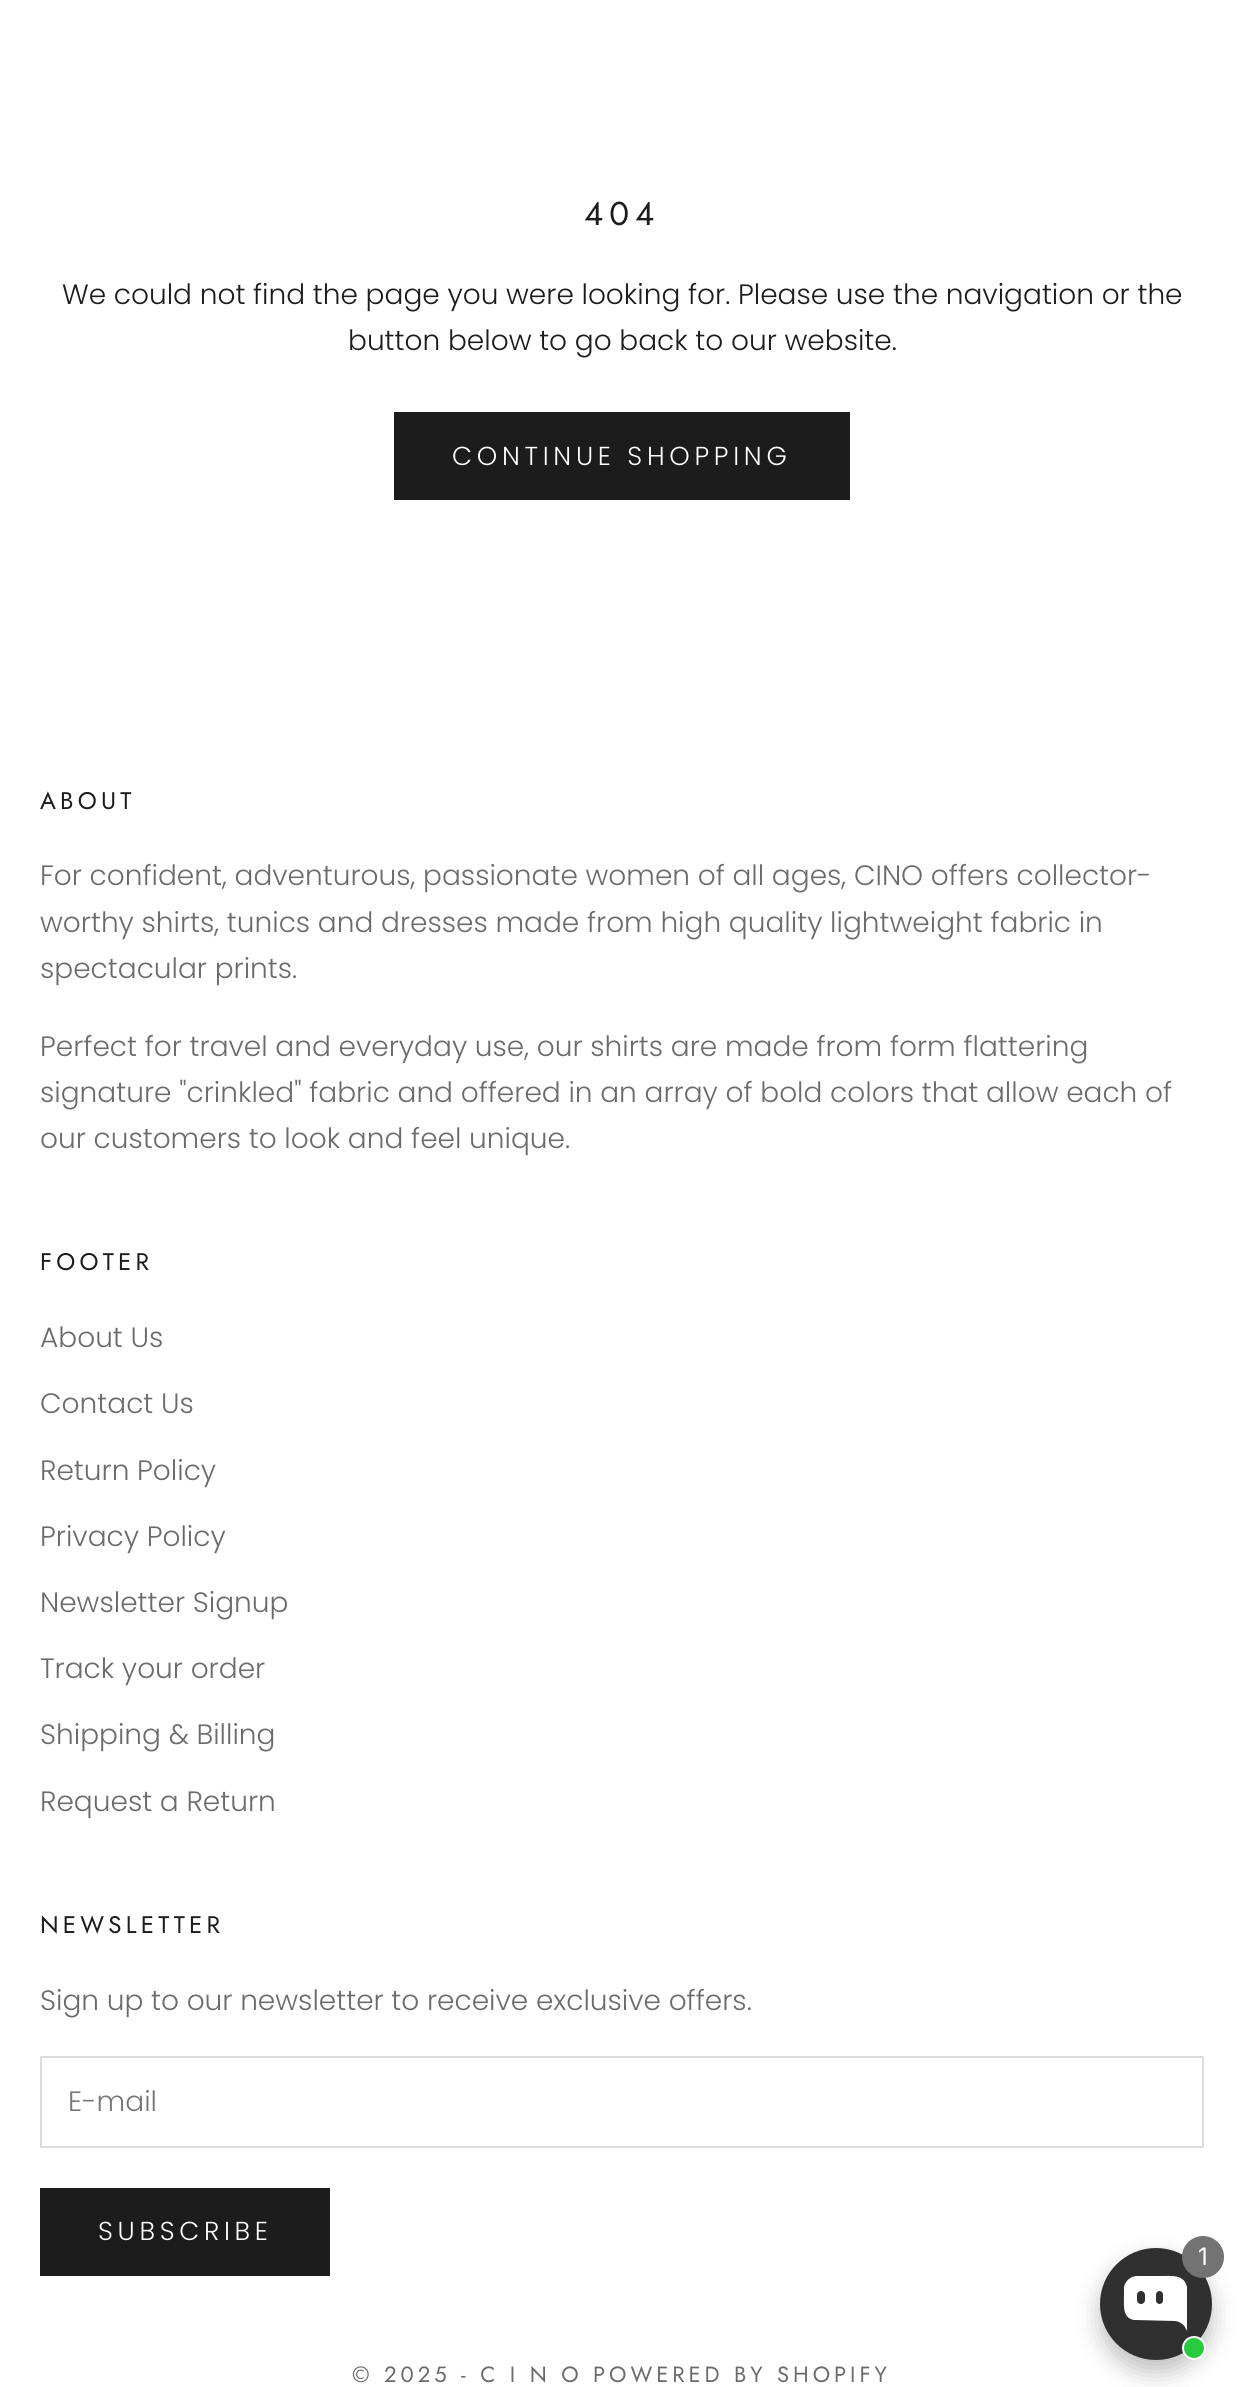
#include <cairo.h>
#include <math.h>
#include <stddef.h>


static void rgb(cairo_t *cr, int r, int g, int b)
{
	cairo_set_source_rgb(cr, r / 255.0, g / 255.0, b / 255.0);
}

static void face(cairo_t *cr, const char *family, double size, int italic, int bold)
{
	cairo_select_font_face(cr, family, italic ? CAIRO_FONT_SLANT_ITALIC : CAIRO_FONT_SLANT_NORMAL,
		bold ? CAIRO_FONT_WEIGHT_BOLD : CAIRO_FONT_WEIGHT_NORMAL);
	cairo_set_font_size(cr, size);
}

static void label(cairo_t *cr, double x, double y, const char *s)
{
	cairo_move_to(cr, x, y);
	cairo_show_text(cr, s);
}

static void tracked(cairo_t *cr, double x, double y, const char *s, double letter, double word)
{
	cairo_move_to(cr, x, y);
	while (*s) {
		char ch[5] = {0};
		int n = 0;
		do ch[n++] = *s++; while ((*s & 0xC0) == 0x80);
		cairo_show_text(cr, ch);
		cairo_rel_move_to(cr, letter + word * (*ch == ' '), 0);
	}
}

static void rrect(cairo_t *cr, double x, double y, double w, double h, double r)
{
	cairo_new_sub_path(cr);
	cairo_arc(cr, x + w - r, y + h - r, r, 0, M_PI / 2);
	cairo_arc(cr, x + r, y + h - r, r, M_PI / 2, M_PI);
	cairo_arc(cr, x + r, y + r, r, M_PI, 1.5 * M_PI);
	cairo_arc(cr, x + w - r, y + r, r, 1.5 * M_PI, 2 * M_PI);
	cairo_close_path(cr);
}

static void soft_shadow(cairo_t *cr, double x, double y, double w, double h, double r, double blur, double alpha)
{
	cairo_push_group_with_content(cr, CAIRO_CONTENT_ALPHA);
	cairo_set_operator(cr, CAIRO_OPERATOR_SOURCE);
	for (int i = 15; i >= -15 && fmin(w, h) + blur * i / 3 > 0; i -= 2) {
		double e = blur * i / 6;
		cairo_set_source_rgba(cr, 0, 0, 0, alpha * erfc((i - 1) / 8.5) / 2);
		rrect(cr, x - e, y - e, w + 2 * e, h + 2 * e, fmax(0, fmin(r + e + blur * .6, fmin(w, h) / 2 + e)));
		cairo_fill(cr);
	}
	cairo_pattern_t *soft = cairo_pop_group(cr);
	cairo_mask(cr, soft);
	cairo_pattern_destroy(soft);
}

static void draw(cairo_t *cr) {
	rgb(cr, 255, 255, 255);
	cairo_paint(cr);
	face(cr, "Jost", 33, 0, 0);
	rgb(cr, 28, 28, 28);
	tracked(cr, 584, 225, "404", 6, 0);
	face(cr, "Poppins Light", 28, 0, 0);
	label(cr, 62, 304, "We could not find the page you were looking for. Please use the navigation or the");
	label(cr, 348, 350, "button below to go back to our website.");
	cairo_rectangle(cr, 395, 413, 454, 86);
	cairo_fill_preserve(cr);
	cairo_stroke(cr);
	face(cr, "Poppins Light", 26, 0, 0);
	rgb(cr, 255, 255, 255);
	tracked(cr, 452, 465, "CONTINUE SHOPPING", 4.7, 0);
	face(cr, "Jost", 24, 0, 0);
	rgb(cr, 28, 28, 28);
	tracked(cr, 40, 809, "ABOUT", 4.25, 0);
	face(cr, "Poppins Light", 28, 0, 0);
	rgb(cr, 107, 107, 107);
	label(cr, 40, 885, "For confident, adventurous, passionate women of all ages, CINO offers collector-");
	label(cr, 40, 932, "worthy shirts, tunics and dresses made from high quality lightweight fabric in");
	label(cr, 40, 978, "spectacular prints.");
	label(cr, 40, 1056, "Perfect for travel and everyday use, our shirts are made from form flattering");
	label(cr, 40, 1102, "signature \"crinkled\" fabric and offered in an array of bold colors that allow each of");
	label(cr, 40, 1148, "our customers to look and feel unique.");
	face(cr, "Jost", 24, 0, 0);
	rgb(cr, 28, 28, 28);
	tracked(cr, 40, 1270, "FOOTER", 4.25, 0);
	face(cr, "Poppins Light", 28, 0, 0);
	rgb(cr, 107, 107, 107);
	label(cr, 40, 1347, "About Us");
	label(cr, 40, 1413, "Contact Us");
	label(cr, 40, 1480, "Return Policy");
	label(cr, 40, 1546, "Privacy Policy");
	label(cr, 40, 1612, "Newsletter Signup");
	label(cr, 40, 1678, "Track your order");
	label(cr, 40, 1744, "Shipping & Billing");
	label(cr, 40, 1811, "Request a Return");
	face(cr, "Jost", 24, 0, 0);
	rgb(cr, 28, 28, 28);
	tracked(cr, 40, 1933, "NEWSLETTER", 4.25, 0);
	face(cr, "Poppins Light", 28, 0, 0);
	rgb(cr, 107, 107, 107);
	label(cr, 40, 2010, "Sign up to our newsletter to receive exclusive offers.");
	cairo_rectangle(cr, 41, 2057, 1162, 90);
	rgb(cr, 221, 221, 221);
	cairo_stroke(cr);
	rgb(cr, 119, 119, 119);
	label(cr, 68, 2111, "E-mail");
	rgb(cr, 28, 28, 28);
	cairo_rectangle(cr, 41, 2189, 288, 86);
	cairo_fill_preserve(cr);
	cairo_stroke(cr);
	face(cr, "Poppins Light", 26, 0, 0);
	rgb(cr, 255, 255, 255);
	tracked(cr, 98, 2240, "SUBSCRIBE", 4.7, 0);
	face(cr, "Jost", 22, 0, 0);
	rgb(cr, 107, 107, 107);
	tracked(cr, 352, 2382, "© 2025 - C I N O POWERED BY SHOPIFY", 3.95, 0);
	rgb(cr, 0, 0, 0);
	soft_shadow(cr, 1100, 2260, 112, 112, 56, 12, 0.25);
	rgb(cr, 48, 48, 48);
	cairo_arc(cr, 1156, 2304, 56, 0, 2 * M_PI);
	cairo_fill(cr);
	rgb(cr, 255, 255, 255);
	cairo_set_fill_rule(cr, CAIRO_FILL_RULE_EVEN_ODD);
	cairo_new_path(cr);
	cairo_move_to(cr, 1137, 2276);
	cairo_curve_to(cr, 1131, 2276, 1125, 2281, 1124, 2287);
	cairo_line_to(cr, 1124, 2295);
	cairo_curve_to(cr, 1124, 2305, 1122, 2318, 1134, 2320);
	cairo_line_to(cr, 1174, 2321);
	cairo_curve_to(cr, 1178, 2321, 1182, 2323, 1185, 2327);
	cairo_line_to(cr, 1187, 2331);
	cairo_line_to(cr, 1187, 2287);
	cairo_curve_to(cr, 1184, 2274, 1171, 2276, 1162, 2276);
	cairo_close_path(cr);
	cairo_fill(cr);
	rgb(cr, 48, 48, 48);
	rrect(cr, 1137, 2291, 8, 13, 4);
	cairo_fill(cr);
	rrect(cr, 1156, 2291, 7, 13, 3.5);
	cairo_fill(cr);
	rgb(cr, 39, 202, 64);
	cairo_arc(cr, 1194, 2348, 11, 0, 2 * M_PI);
	cairo_fill_preserve(cr);
	rgb(cr, 255, 255, 255);
	cairo_stroke(cr);
	rgb(cr, 115, 115, 115);
	cairo_arc(cr, 1203, 2257, 21, 0, 2 * M_PI);
	cairo_fill(cr);
	face(cr, "Inter", 24, 0, 0);
	rgb(cr, 255, 255, 255);
	label(cr, 1198, 2265, "1");
}

int main(void) {
	cairo_surface_t *surface = cairo_image_surface_create(CAIRO_FORMAT_RGB24, 1243, 2387);
	cairo_t *cr = cairo_create(surface);
	cairo_font_options_t *options = cairo_font_options_create();
	cairo_font_options_set_hint_metrics(options, CAIRO_HINT_METRICS_OFF);
	cairo_font_options_set_hint_style(options, CAIRO_HINT_STYLE_NONE);
	cairo_set_font_options(cr, options);
	cairo_set_miter_limit(cr, 4);
	draw(cr);
	cairo_surface_write_to_png(surface, "render.png");
	cairo_font_options_destroy(options);
	cairo_destroy(cr);
	cairo_surface_destroy(surface);
	return 0;
}
